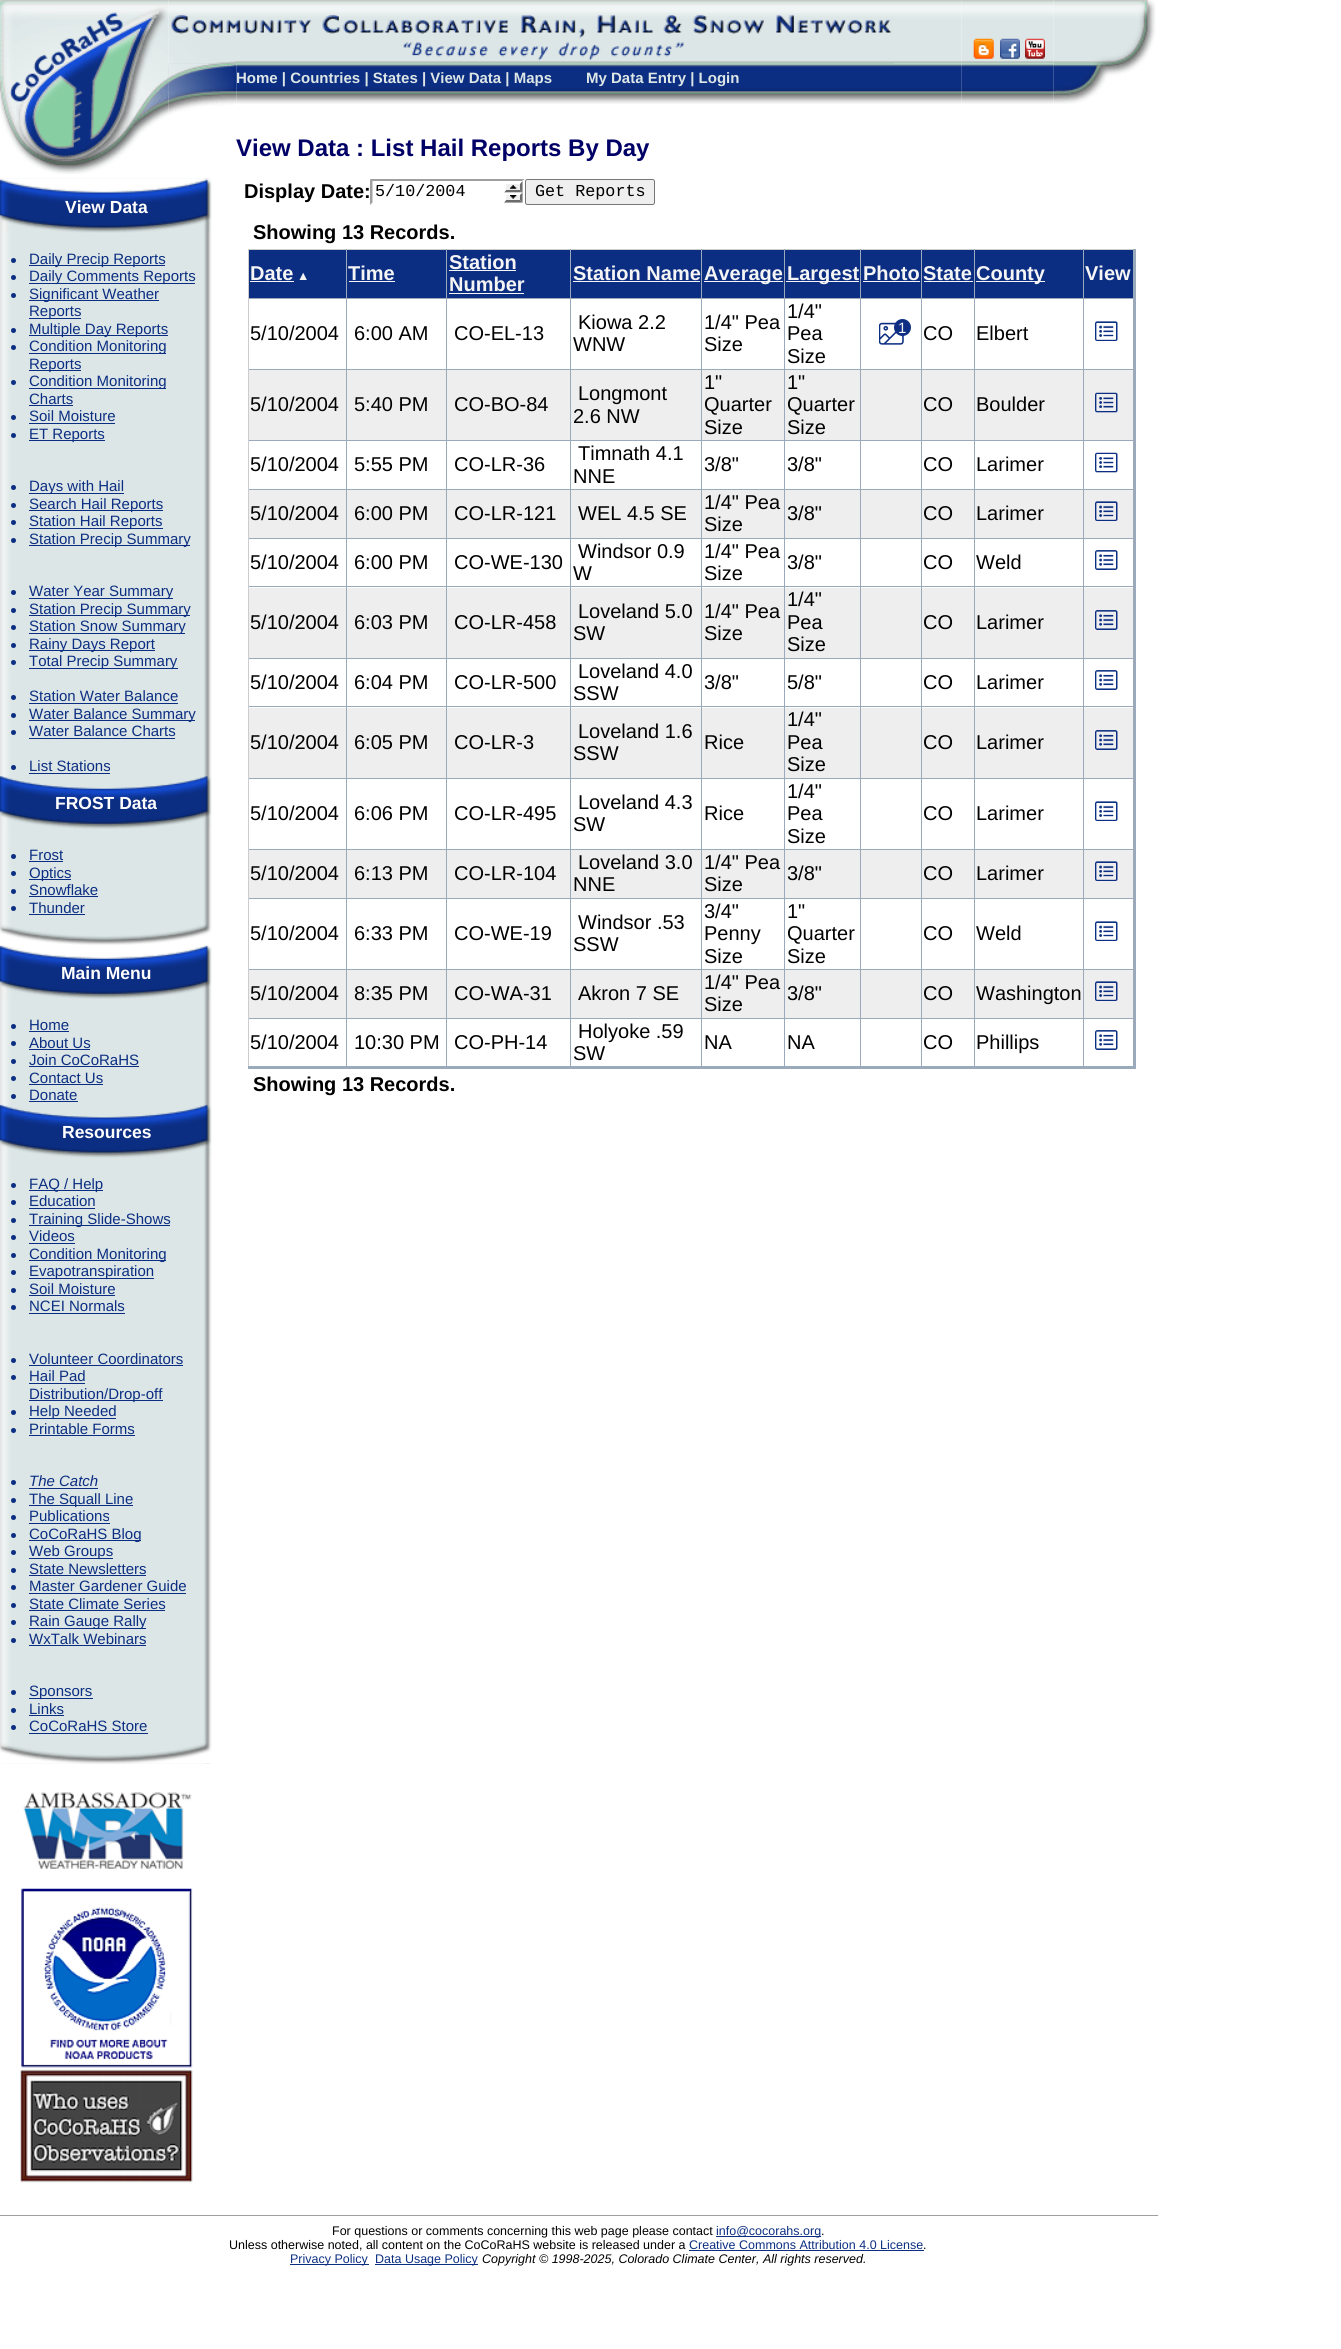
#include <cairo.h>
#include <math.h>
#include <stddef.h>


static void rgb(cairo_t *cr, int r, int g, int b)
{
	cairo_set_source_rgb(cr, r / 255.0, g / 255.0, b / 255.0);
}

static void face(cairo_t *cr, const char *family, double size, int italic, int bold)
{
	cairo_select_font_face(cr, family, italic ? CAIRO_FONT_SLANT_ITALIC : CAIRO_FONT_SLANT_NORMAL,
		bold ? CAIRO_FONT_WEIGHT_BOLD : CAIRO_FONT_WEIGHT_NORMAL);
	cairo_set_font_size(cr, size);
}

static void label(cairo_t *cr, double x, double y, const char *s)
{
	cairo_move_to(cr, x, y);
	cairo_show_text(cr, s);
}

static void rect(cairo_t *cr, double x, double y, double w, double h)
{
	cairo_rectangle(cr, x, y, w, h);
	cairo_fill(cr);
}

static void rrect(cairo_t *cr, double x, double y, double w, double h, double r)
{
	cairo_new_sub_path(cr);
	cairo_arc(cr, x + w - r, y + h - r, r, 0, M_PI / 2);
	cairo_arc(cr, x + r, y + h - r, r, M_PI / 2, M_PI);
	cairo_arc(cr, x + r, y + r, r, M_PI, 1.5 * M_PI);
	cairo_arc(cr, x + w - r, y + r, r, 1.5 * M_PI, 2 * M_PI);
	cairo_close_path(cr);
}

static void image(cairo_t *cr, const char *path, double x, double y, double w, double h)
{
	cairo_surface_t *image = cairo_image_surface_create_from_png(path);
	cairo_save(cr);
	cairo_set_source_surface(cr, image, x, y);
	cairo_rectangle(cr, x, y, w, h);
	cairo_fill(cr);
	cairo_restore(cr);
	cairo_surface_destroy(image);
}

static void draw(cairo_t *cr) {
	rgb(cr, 255, 255, 255);
	cairo_paint(cr);
	image(cr, "image1.png", 168, 0, 794, 64);
	image(cr, "image8.png", 168, 63, 69, 41);
	image(cr, "image0.png", 0, 0, 169, 174);
	image(cr, "image3.png", 961, 0, 93, 64);
	image(cr, "image10.png", 236, 63, 726, 41);
	image(cr, "image2.png", 169, 14, 725, 50);
	image(cr, "image4.png", 973, 38, 21, 21);
	image(cr, "image5.png", 1000, 38, 20, 21);
	image(cr, "image6.png", 1025, 38, 20, 21);
	image(cr, "image11.png", 961, 63, 93, 41);
	image(cr, "image7.png", 1053, 0, 103, 104);
	image(cr, "image9.png", 168, 63, 66, 52);
	face(cr, "Liberation Sans", 15, 0, 1);
	rgb(cr, 220, 230, 230);
	label(cr, 236, 83, "Home | Countries | States | View Data | Maps");
	label(cr, 586, 83, "My Data Entry | Login");
	face(cr, "Liberation Sans", 24, 0, 1);
	rgb(cr, 0, 0, 102);
	label(cr, 236, 156, "View Data : List Hail Reports By Day");
	image(cr, "image12.png", 0, 178, 212, 746);
	image(cr, "image13.png", 0, 178, 212, 55);
	face(cr, "Liberation Sans", 17.5, 0, 1);
	rgb(cr, 255, 255, 255);
	label(cr, 65, 213, "View Data");
	rgb(cr, 12, 46, 130);
	cairo_new_path(cr);
	cairo_arc(cr, 13.5, 260.5, 2.5, 0, 2 * M_PI);
	cairo_fill(cr);
	rect(cr, 29, 265, 136, 1);
	face(cr, "Liberation Sans", 15, 0, 0);
	label(cr, 29, 264, "Daily Precip Reports");
	cairo_new_path(cr);
	cairo_arc(cr, 13.5, 277.5, 2.5, 0, 2 * M_PI);
	cairo_fill(cr);
	rect(cr, 29, 283, 166, 1);
	label(cr, 29, 281, "Daily Comments Reports");
	cairo_new_path(cr);
	cairo_arc(cr, 13.5, 295.5, 2.5, 0, 2 * M_PI);
	cairo_fill(cr);
	rect(cr, 29, 300, 130, 1);
	label(cr, 29, 299, "Significant Weather");
	rect(cr, 29, 318, 52, 1);
	label(cr, 29, 316, "Reports");
	cairo_new_path(cr);
	cairo_arc(cr, 13.5, 330.5, 2.5, 0, 2 * M_PI);
	cairo_fill(cr);
	rect(cr, 29, 335, 139, 1);
	label(cr, 29, 334, "Multiple Day Reports");
	cairo_new_path(cr);
	cairo_arc(cr, 13.5, 347.5, 2.5, 0, 2 * M_PI);
	cairo_fill(cr);
	rect(cr, 29, 353, 137, 1);
	label(cr, 29, 351, "Condition Monitoring");
	rect(cr, 29, 370, 52, 1);
	label(cr, 29, 369, "Reports");
	cairo_new_path(cr);
	cairo_arc(cr, 13.5, 382.5, 2.5, 0, 2 * M_PI);
	cairo_fill(cr);
	rect(cr, 29, 388, 137, 1);
	label(cr, 29, 386, "Condition Monitoring");
	label(cr, 29, 404, "Charts");
	rect(cr, 29, 405, 44, 1);
	cairo_new_path(cr);
	cairo_arc(cr, 13.5, 417.5, 2.5, 0, 2 * M_PI);
	cairo_fill(cr);
	label(cr, 29, 421, "Soil Moisture");
	rect(cr, 29, 423, 86, 1);
	cairo_new_path(cr);
	cairo_arc(cr, 13.5, 435.5, 2.5, 0, 2 * M_PI);
	cairo_fill(cr);
	rect(cr, 29, 440, 76, 1);
	label(cr, 29, 439, "ET Reports");
	cairo_new_path(cr);
	cairo_arc(cr, 13.5, 487.5, 2.5, 0, 2 * M_PI);
	cairo_fill(cr);
	rect(cr, 29, 493, 95, 1);
	label(cr, 29, 491, "Days with Hail");
	cairo_new_path(cr);
	cairo_arc(cr, 13.5, 505.5, 2.5, 0, 2 * M_PI);
	cairo_fill(cr);
	rect(cr, 29, 510, 134, 1);
	label(cr, 29, 509, "Search Hail Reports");
	cairo_new_path(cr);
	cairo_arc(cr, 13.5, 522.5, 2.5, 0, 2 * M_PI);
	cairo_fill(cr);
	rect(cr, 29, 528, 134, 1);
	label(cr, 29, 526, "Station Hail Reports");
	cairo_new_path(cr);
	cairo_arc(cr, 13.5, 540.5, 2.5, 0, 2 * M_PI);
	cairo_fill(cr);
	rect(cr, 29, 545, 161, 1);
	label(cr, 29, 544, "Station Precip Summary");
	cairo_new_path(cr);
	cairo_arc(cr, 13.5, 592.5, 2.5, 0, 2 * M_PI);
	cairo_fill(cr);
	rect(cr, 29, 598, 144, 1);
	label(cr, 29, 596, "Water Year Summary");
	cairo_new_path(cr);
	cairo_arc(cr, 13.5, 610.5, 2.5, 0, 2 * M_PI);
	cairo_fill(cr);
	rect(cr, 29, 615, 161, 1);
	label(cr, 29, 614, "Station Precip Summary");
	cairo_new_path(cr);
	cairo_arc(cr, 13.5, 627.5, 2.5, 0, 2 * M_PI);
	cairo_fill(cr);
	rect(cr, 29, 633, 156, 1);
	label(cr, 29, 631, "Station Snow Summary");
	cairo_new_path(cr);
	cairo_arc(cr, 13.5, 645.5, 2.5, 0, 2 * M_PI);
	cairo_fill(cr);
	rect(cr, 29, 650, 126, 1);
	label(cr, 29, 649, "Rainy Days Report");
	cairo_new_path(cr);
	cairo_arc(cr, 13.5, 662.5, 2.5, 0, 2 * M_PI);
	cairo_fill(cr);
	rect(cr, 29, 668, 149, 1);
	label(cr, 29, 666, "Total Precip Summary");
	cairo_new_path(cr);
	cairo_arc(cr, 13.5, 697.5, 2.5, 0, 2 * M_PI);
	cairo_fill(cr);
	label(cr, 29, 701, "Station Water Balance");
	rect(cr, 29, 703, 149, 1);
	cairo_new_path(cr);
	cairo_arc(cr, 13.5, 715.5, 2.5, 0, 2 * M_PI);
	cairo_fill(cr);
	rect(cr, 29, 720, 166, 1);
	label(cr, 29, 719, "Water Balance Summary");
	cairo_new_path(cr);
	cairo_arc(cr, 13.5, 732.5, 2.5, 0, 2 * M_PI);
	cairo_fill(cr);
	label(cr, 29, 736, "Water Balance Charts");
	rect(cr, 29, 738, 146, 1);
	cairo_new_path(cr);
	cairo_arc(cr, 13.5, 767.5, 2.5, 0, 2 * M_PI);
	cairo_fill(cr);
	label(cr, 29, 771, "List Stations");
	rect(cr, 29, 773, 81, 1);
	image(cr, "image14.png", 0, 775, 212, 54);
	face(cr, "Liberation Sans", 17.5, 0, 1);
	rgb(cr, 255, 255, 255);
	label(cr, 55, 809, "FROST Data");
	rgb(cr, 12, 46, 130);
	cairo_new_path(cr);
	cairo_arc(cr, 13.5, 856.5, 2.5, 0, 2 * M_PI);
	cairo_fill(cr);
	face(cr, "Liberation Sans", 15, 0, 0);
	label(cr, 29, 860, "Frost");
	rect(cr, 29, 861, 34, 1);
	cairo_new_path(cr);
	cairo_arc(cr, 13.5, 873.5, 2.5, 0, 2 * M_PI);
	cairo_fill(cr);
	rect(cr, 29, 879, 42, 1);
	label(cr, 29, 878, "Optics");
	cairo_new_path(cr);
	cairo_arc(cr, 13.5, 891.5, 2.5, 0, 2 * M_PI);
	cairo_fill(cr);
	label(cr, 29, 895, "Snowflake");
	rect(cr, 29, 896, 69, 1);
	cairo_new_path(cr);
	cairo_arc(cr, 13.5, 908.5, 2.5, 0, 2 * M_PI);
	cairo_fill(cr);
	label(cr, 29, 913, "Thunder");
	rect(cr, 29, 914, 56, 1);
	image(cr, "image15.png", 0, 924, 212, 21);
	image(cr, "image16.png", 0, 998, 212, 766);
	image(cr, "image17.png", 0, 945, 212, 54);
	face(cr, "Liberation Sans", 17.5, 0, 1);
	rgb(cr, 255, 255, 255);
	label(cr, 61, 979, "Main Menu");
	rgb(cr, 12, 46, 130);
	cairo_new_path(cr);
	cairo_arc(cr, 13.5, 1026.5, 2.5, 0, 2 * M_PI);
	cairo_fill(cr);
	face(cr, "Liberation Sans", 15, 0, 0);
	label(cr, 29, 1030, "Home");
	rect(cr, 29, 1031, 40, 1);
	cairo_new_path(cr);
	cairo_arc(cr, 13.5, 1043.5, 2.5, 0, 2 * M_PI);
	cairo_fill(cr);
	label(cr, 29, 1048, "About Us");
	rect(cr, 29, 1049, 61, 1);
	cairo_new_path(cr);
	cairo_arc(cr, 13.5, 1061.5, 2.5, 0, 2 * M_PI);
	cairo_fill(cr);
	label(cr, 29, 1065, "Join CoCoRaHS");
	rect(cr, 29, 1066, 110, 1);
	cairo_new_path(cr);
	cairo_arc(cr, 13.5, 1078.5, 2.5, 0, 2 * M_PI);
	cairo_fill(cr);
	label(cr, 29, 1083, "Contact Us");
	rect(cr, 29, 1084, 74, 1);
	cairo_new_path(cr);
	cairo_arc(cr, 13.5, 1096.5, 2.5, 0, 2 * M_PI);
	cairo_fill(cr);
	label(cr, 29, 1100, "Donate");
	rect(cr, 29, 1101, 49, 1);
	image(cr, "image18.png", 0, 1104, 212, 54);
	face(cr, "Liberation Sans", 17.5, 0, 1);
	rgb(cr, 255, 255, 255);
	label(cr, 62, 1138, "Resources");
	rgb(cr, 12, 46, 130);
	cairo_new_path(cr);
	cairo_arc(cr, 13.5, 1185.5, 2.5, 0, 2 * M_PI);
	cairo_fill(cr);
	rect(cr, 29, 1190, 74, 1);
	face(cr, "Liberation Sans", 15, 0, 0);
	label(cr, 29, 1189, "FAQ / Help");
	cairo_new_path(cr);
	cairo_arc(cr, 13.5, 1202.5, 2.5, 0, 2 * M_PI);
	cairo_fill(cr);
	label(cr, 29, 1206, "Education");
	rect(cr, 29, 1208, 66, 1);
	cairo_new_path(cr);
	cairo_arc(cr, 13.5, 1220.5, 2.5, 0, 2 * M_PI);
	cairo_fill(cr);
	rect(cr, 29, 1225, 141, 1);
	label(cr, 29, 1224, "Training Slide-Shows");
	cairo_new_path(cr);
	cairo_arc(cr, 13.5, 1237.5, 2.5, 0, 2 * M_PI);
	cairo_fill(cr);
	label(cr, 29, 1241, "Videos");
	rect(cr, 29, 1243, 46, 1);
	cairo_new_path(cr);
	cairo_arc(cr, 13.5, 1255.5, 2.5, 0, 2 * M_PI);
	cairo_fill(cr);
	rect(cr, 29, 1260, 137, 1);
	label(cr, 29, 1259, "Condition Monitoring");
	cairo_new_path(cr);
	cairo_arc(cr, 13.5, 1272.5, 2.5, 0, 2 * M_PI);
	cairo_fill(cr);
	rect(cr, 29, 1278, 125, 1);
	label(cr, 29, 1276, "Evapotranspiration");
	cairo_new_path(cr);
	cairo_arc(cr, 13.5, 1290.5, 2.5, 0, 2 * M_PI);
	cairo_fill(cr);
	label(cr, 29, 1294, "Soil Moisture");
	rect(cr, 29, 1295, 86, 1);
	cairo_new_path(cr);
	cairo_arc(cr, 13.5, 1307.5, 2.5, 0, 2 * M_PI);
	cairo_fill(cr);
	label(cr, 29, 1311, "NCEI Normals");
	rect(cr, 29, 1313, 96, 1);
	cairo_new_path(cr);
	cairo_arc(cr, 13.5, 1360.5, 2.5, 0, 2 * M_PI);
	cairo_fill(cr);
	label(cr, 29, 1364, "Volunteer Coordinators");
	rect(cr, 29, 1365, 154, 1);
	cairo_new_path(cr);
	cairo_arc(cr, 13.5, 1377.5, 2.5, 0, 2 * M_PI);
	cairo_fill(cr);
	label(cr, 29, 1381, "Hail Pad");
	rect(cr, 29, 1383, 56, 1);
	rect(cr, 29, 1400, 134, 1);
	label(cr, 29, 1399, "Distribution/Drop-off");
	cairo_new_path(cr);
	cairo_arc(cr, 13.5, 1412.5, 2.5, 0, 2 * M_PI);
	cairo_fill(cr);
	rect(cr, 29, 1418, 87, 1);
	label(cr, 29, 1416, "Help Needed");
	cairo_new_path(cr);
	cairo_arc(cr, 13.5, 1430.5, 2.5, 0, 2 * M_PI);
	cairo_fill(cr);
	label(cr, 29, 1434, "Printable Forms");
	rect(cr, 29, 1435, 106, 1);
	cairo_new_path(cr);
	cairo_arc(cr, 13.5, 1482.5, 2.5, 0, 2 * M_PI);
	cairo_fill(cr);
	face(cr, "Liberation Sans", 15, 1, 0);
	label(cr, 29, 1486, "The Catch");
	rect(cr, 29, 1488, 69, 1);
	cairo_new_path(cr);
	cairo_arc(cr, 13.5, 1500.5, 2.5, 0, 2 * M_PI);
	cairo_fill(cr);
	rect(cr, 29, 1505, 104, 1);
	face(cr, "Liberation Sans", 15, 0, 0);
	label(cr, 29, 1504, "The Squall Line");
	cairo_new_path(cr);
	cairo_arc(cr, 13.5, 1517.5, 2.5, 0, 2 * M_PI);
	cairo_fill(cr);
	label(cr, 29, 1521, "Publications");
	rect(cr, 29, 1523, 81, 1);
	cairo_new_path(cr);
	cairo_arc(cr, 13.5, 1535.5, 2.5, 0, 2 * M_PI);
	cairo_fill(cr);
	rect(cr, 29, 1540, 112, 1);
	label(cr, 29, 1539, "CoCoRaHS Blog");
	cairo_new_path(cr);
	cairo_arc(cr, 13.5, 1552.5, 2.5, 0, 2 * M_PI);
	cairo_fill(cr);
	rect(cr, 29, 1558, 84, 1);
	label(cr, 29, 1556, "Web Groups");
	cairo_new_path(cr);
	cairo_arc(cr, 13.5, 1570.5, 2.5, 0, 2 * M_PI);
	cairo_fill(cr);
	label(cr, 29, 1574, "State Newsletters");
	rect(cr, 29, 1575, 117, 1);
	cairo_new_path(cr);
	cairo_arc(cr, 13.5, 1587.5, 2.5, 0, 2 * M_PI);
	cairo_fill(cr);
	label(cr, 29, 1591, "Master Gardener Guide");
	rect(cr, 29, 1593, 157, 1);
	cairo_new_path(cr);
	cairo_arc(cr, 13.5, 1605.5, 2.5, 0, 2 * M_PI);
	cairo_fill(cr);
	label(cr, 29, 1609, "State Climate Series");
	rect(cr, 29, 1610, 136, 1);
	cairo_new_path(cr);
	cairo_arc(cr, 13.5, 1622.5, 2.5, 0, 2 * M_PI);
	cairo_fill(cr);
	rect(cr, 29, 1628, 117, 1);
	label(cr, 29, 1626, "Rain Gauge Rally");
	cairo_new_path(cr);
	cairo_arc(cr, 13.5, 1640.5, 2.5, 0, 2 * M_PI);
	cairo_fill(cr);
	label(cr, 29, 1644, "WxTalk Webinars");
	rect(cr, 29, 1645, 117, 1);
	cairo_new_path(cr);
	cairo_arc(cr, 13.5, 1692.5, 2.5, 0, 2 * M_PI);
	cairo_fill(cr);
	rect(cr, 29, 1698, 64, 1);
	label(cr, 29, 1696, "Sponsors");
	cairo_new_path(cr);
	cairo_arc(cr, 13.5, 1710.5, 2.5, 0, 2 * M_PI);
	cairo_fill(cr);
	label(cr, 29, 1714, "Links");
	rect(cr, 29, 1715, 35, 1);
	cairo_new_path(cr);
	cairo_arc(cr, 13.5, 1727.5, 2.5, 0, 2 * M_PI);
	cairo_fill(cr);
	label(cr, 29, 1731, "CoCoRaHS Store");
	rect(cr, 29, 1733, 119, 1);
	image(cr, "image19.png", 0, 1743, 212, 21);
	image(cr, "image20.png", 23, 1792, 169, 78);
	image(cr, "image21.png", 21, 1888, 172, 180);
	image(cr, "image22.png", 20, 2069, 173, 114);
	face(cr, "Liberation Sans", 20, 0, 1);
	rgb(cr, 0, 0, 0);
	label(cr, 244, 198, "Display Date:");
	rgb(cr, 160, 160, 160);
	cairo_new_path(cr);
	cairo_move_to(cr, 370, 179);
	cairo_line_to(cr, 525, 179);
	cairo_line_to(cr, 522, 181);
	cairo_line_to(cr, 372, 181);
	cairo_close_path(cr);
	cairo_fill(cr);
	rgb(cr, 255, 255, 255);
	cairo_new_path(cr);
	cairo_move_to(cr, 525, 179);
	cairo_line_to(cr, 525, 205);
	cairo_line_to(cr, 522.5, 202.5);
	cairo_line_to(cr, 522.5, 181);
	cairo_close_path(cr);
	cairo_fill(cr);
	rgb(cr, 160, 160, 160);
	cairo_new_path(cr);
	cairo_move_to(cr, 370, 205);
	cairo_line_to(cr, 370, 179);
	cairo_line_to(cr, 372.5, 181);
	cairo_line_to(cr, 372.5, 202.5);
	cairo_close_path(cr);
	cairo_fill(cr);
	face(cr, "Liberation Mono", 16.75, 0, 0);
	rgb(cr, 0, 0, 0);
	label(cr, 375, 196, "5/10/2004");
	rgb(cr, 239, 239, 239);
	rect(cr, 504, 181, 19, 22);
	rgb(cr, 255, 255, 255);
	cairo_new_path(cr);
	cairo_move_to(cr, 504, 181);
	cairo_line_to(cr, 522.5, 181);
	cairo_line_to(cr, 520, 184);
	cairo_line_to(cr, 506, 184);
	cairo_close_path(cr);
	cairo_fill(cr);
	rgb(cr, 107, 107, 107);
	cairo_new_path(cr);
	cairo_move_to(cr, 522.5, 181);
	cairo_line_to(cr, 522.5, 192.5);
	cairo_line_to(cr, 520, 190);
	cairo_line_to(cr, 520, 184);
	cairo_close_path(cr);
	cairo_fill(cr);
	cairo_new_path(cr);
	cairo_move_to(cr, 522.5, 192.5);
	cairo_line_to(cr, 504, 192.5);
	cairo_line_to(cr, 506, 190);
	cairo_line_to(cr, 520, 190);
	cairo_close_path(cr);
	cairo_fill(cr);
	rgb(cr, 255, 255, 255);
	cairo_new_path(cr);
	cairo_move_to(cr, 504, 192.5);
	cairo_line_to(cr, 504, 181);
	cairo_line_to(cr, 506, 184);
	cairo_line_to(cr, 506, 190);
	cairo_close_path(cr);
	cairo_fill(cr);
	image(cr, "image23.png", 510, 185, 7, 4);
	cairo_new_path(cr);
	cairo_move_to(cr, 504, 192.5);
	cairo_line_to(cr, 522.5, 192.5);
	cairo_line_to(cr, 520, 195);
	cairo_line_to(cr, 506, 195);
	cairo_close_path(cr);
	cairo_fill(cr);
	rgb(cr, 107, 107, 107);
	cairo_new_path(cr);
	cairo_move_to(cr, 522.5, 192.5);
	cairo_line_to(cr, 522.5, 202.5);
	cairo_line_to(cr, 520, 200);
	cairo_line_to(cr, 520, 195);
	cairo_close_path(cr);
	cairo_fill(cr);
	cairo_new_path(cr);
	cairo_move_to(cr, 522.5, 202.5);
	cairo_line_to(cr, 504, 202.5);
	cairo_line_to(cr, 506, 200);
	cairo_line_to(cr, 520, 200);
	cairo_close_path(cr);
	cairo_fill(cr);
	rgb(cr, 255, 255, 255);
	cairo_new_path(cr);
	cairo_move_to(cr, 504, 202.5);
	cairo_line_to(cr, 504, 192.5);
	cairo_line_to(cr, 506, 195);
	cairo_line_to(cr, 506, 200);
	cairo_close_path(cr);
	cairo_fill(cr);
	image(cr, "image24.png", 510, 195, 7, 4);
	rgb(cr, 239, 239, 239);
	rrect(cr, 525.5, 179.5, 129, 25, 2);
	cairo_fill_preserve(cr);
	rgb(cr, 118, 118, 118);
	cairo_set_line_width(cr, 1);
	cairo_stroke(cr);
	rgb(cr, 0, 0, 0);
	label(cr, 535, 196, "Get Reports");
	face(cr, "Liberation Sans", 20, 0, 1);
	label(cr, 253, 239, "Showing 13 Records.");
	rgb(cr, 204, 204, 204);
	rect(cr, 248, 249, 887, 1);
	rgb(cr, 238, 238, 238);
	rect(cr, 249, 370, 884, 70);
	rect(cr, 249, 490, 884, 48);
	rect(cr, 249, 588, 884, 70);
	rect(cr, 249, 708, 884, 70);
	rect(cr, 249, 850, 884, 48);
	rect(cr, 249, 970, 884, 48);
	rgb(cr, 154, 170, 187);
	rect(cr, 1083, 1018, 1, 51);
	rect(cr, 1083, 1018, 51, 1);
	rect(cr, 1083, 969, 1, 50);
	rect(cr, 1083, 969, 51, 1);
	rect(cr, 1083, 898, 1, 72);
	rect(cr, 1083, 898, 51, 1);
	rect(cr, 1083, 849, 1, 50);
	rect(cr, 1083, 849, 51, 1);
	rect(cr, 1083, 778, 1, 72);
	rect(cr, 1083, 778, 51, 1);
	rect(cr, 1083, 706, 1, 73);
	rect(cr, 1083, 706, 51, 1);
	rect(cr, 1083, 658, 1, 50);
	rect(cr, 1083, 658, 51, 1);
	rect(cr, 1083, 586, 1, 73);
	rect(cr, 1083, 586, 51, 1);
	rect(cr, 1083, 538, 1, 50);
	rect(cr, 1083, 538, 51, 1);
	rect(cr, 1083, 489, 1, 50);
	rect(cr, 1083, 489, 51, 1);
	rect(cr, 1083, 440, 1, 50);
	rect(cr, 1083, 440, 51, 1);
	rect(cr, 1083, 369, 1, 72);
	rect(cr, 1083, 369, 51, 1);
	rect(cr, 1083, 298, 1, 72);
	rect(cr, 1083, 298, 51, 1);
	rect(cr, 1133, 249, 3, 820);
	rect(cr, 346, 1018, 1, 51);
	rgb(cr, 204, 204, 204);
	rect(cr, 248, 1018, 1, 51);
	rgb(cr, 154, 170, 187);
	rect(cr, 446, 1018, 1, 51);
	rect(cr, 570, 1018, 1, 51);
	rect(cr, 701, 1018, 1, 51);
	rect(cr, 784, 1018, 1, 51);
	rect(cr, 860, 1018, 1, 51);
	rect(cr, 921, 1018, 1, 51);
	rect(cr, 974, 1018, 1, 51);
	rect(cr, 248, 1066, 887, 3);
	rgb(cr, 12, 46, 130);
	rect(cr, 249, 250, 884, 48);
	rgb(cr, 154, 170, 187);
	rect(cr, 1083, 249, 1, 50);
	rect(cr, 974, 1018, 110, 1);
	rect(cr, 974, 969, 1, 50);
	rect(cr, 974, 969, 110, 1);
	rect(cr, 974, 898, 1, 72);
	rect(cr, 974, 898, 110, 1);
	rect(cr, 974, 849, 1, 50);
	rect(cr, 974, 849, 110, 1);
	rect(cr, 974, 778, 1, 72);
	rect(cr, 974, 778, 110, 1);
	rect(cr, 974, 706, 1, 73);
	rect(cr, 974, 706, 110, 1);
	rect(cr, 974, 658, 1, 50);
	rect(cr, 974, 658, 110, 1);
	rect(cr, 974, 586, 1, 73);
	rect(cr, 974, 586, 110, 1);
	rect(cr, 974, 538, 1, 50);
	rect(cr, 974, 538, 110, 1);
	rect(cr, 974, 489, 1, 50);
	rect(cr, 974, 489, 110, 1);
	rect(cr, 974, 440, 1, 50);
	rect(cr, 974, 440, 110, 1);
	rect(cr, 974, 369, 1, 72);
	rect(cr, 974, 369, 110, 1);
	rect(cr, 974, 298, 1, 72);
	rect(cr, 974, 298, 110, 1);
	rect(cr, 974, 249, 1, 50);
	rect(cr, 921, 1018, 54, 1);
	rect(cr, 921, 969, 1, 50);
	rect(cr, 921, 969, 54, 1);
	rect(cr, 921, 898, 1, 72);
	rect(cr, 921, 898, 54, 1);
	rect(cr, 921, 849, 1, 50);
	rect(cr, 921, 849, 54, 1);
	rect(cr, 921, 778, 1, 72);
	rect(cr, 921, 778, 54, 1);
	rect(cr, 921, 706, 1, 73);
	rect(cr, 921, 706, 54, 1);
	rect(cr, 921, 658, 1, 50);
	rect(cr, 921, 658, 54, 1);
	rect(cr, 921, 586, 1, 73);
	rect(cr, 921, 586, 54, 1);
	rect(cr, 921, 538, 1, 50);
	rect(cr, 921, 538, 54, 1);
	rect(cr, 921, 489, 1, 50);
	rect(cr, 921, 489, 54, 1);
	rect(cr, 921, 440, 1, 50);
	rect(cr, 921, 440, 54, 1);
	rect(cr, 921, 369, 1, 72);
	rect(cr, 921, 369, 54, 1);
	rect(cr, 921, 298, 1, 72);
	rect(cr, 921, 298, 54, 1);
	rect(cr, 921, 249, 1, 50);
	rect(cr, 860, 1018, 63, 1);
	rect(cr, 860, 969, 1, 50);
	rect(cr, 860, 969, 63, 1);
	rect(cr, 860, 898, 1, 72);
	rect(cr, 860, 898, 63, 1);
	rect(cr, 860, 849, 1, 50);
	rect(cr, 860, 849, 63, 1);
	rect(cr, 860, 778, 1, 72);
	rect(cr, 860, 778, 63, 1);
	rect(cr, 860, 706, 1, 73);
	rect(cr, 860, 706, 63, 1);
	rect(cr, 860, 658, 1, 50);
	rect(cr, 860, 658, 63, 1);
	rect(cr, 860, 586, 1, 73);
	rect(cr, 860, 586, 63, 1);
	rect(cr, 860, 538, 1, 50);
	rect(cr, 860, 538, 63, 1);
	rect(cr, 860, 489, 1, 50);
	rect(cr, 860, 489, 63, 1);
	rect(cr, 860, 440, 1, 50);
	rect(cr, 860, 440, 63, 1);
	rect(cr, 860, 369, 1, 72);
	rect(cr, 860, 369, 63, 1);
	rect(cr, 860, 298, 1, 72);
	rect(cr, 860, 298, 63, 1);
	rect(cr, 860, 249, 1, 50);
	rect(cr, 784, 1018, 77, 1);
	rect(cr, 784, 969, 1, 50);
	rect(cr, 784, 969, 77, 1);
	rect(cr, 784, 898, 1, 72);
	rect(cr, 784, 898, 77, 1);
	rect(cr, 784, 849, 1, 50);
	rect(cr, 784, 849, 77, 1);
	rect(cr, 784, 778, 1, 72);
	rect(cr, 784, 778, 77, 1);
	rect(cr, 784, 706, 1, 73);
	rect(cr, 784, 706, 77, 1);
	rect(cr, 784, 658, 1, 50);
	rect(cr, 784, 658, 77, 1);
	rect(cr, 784, 586, 1, 73);
	rect(cr, 784, 586, 77, 1);
	rect(cr, 784, 538, 1, 50);
	rect(cr, 784, 538, 77, 1);
	rect(cr, 784, 489, 1, 50);
	rect(cr, 784, 489, 77, 1);
	rect(cr, 784, 440, 1, 50);
	rect(cr, 784, 440, 77, 1);
	rect(cr, 784, 369, 1, 72);
	rect(cr, 784, 369, 77, 1);
	rect(cr, 784, 298, 1, 72);
	rect(cr, 784, 298, 77, 1);
	rect(cr, 784, 249, 1, 50);
	rect(cr, 701, 1018, 84, 1);
	rect(cr, 701, 969, 1, 50);
	rect(cr, 701, 969, 84, 1);
	rect(cr, 701, 898, 1, 72);
	rect(cr, 701, 898, 84, 1);
	rect(cr, 701, 849, 1, 50);
	rect(cr, 701, 849, 84, 1);
	rect(cr, 701, 778, 1, 72);
	rect(cr, 701, 778, 84, 1);
	rect(cr, 701, 706, 1, 73);
	rect(cr, 701, 706, 84, 1);
	rect(cr, 701, 658, 1, 50);
	rect(cr, 701, 658, 84, 1);
	rect(cr, 701, 586, 1, 73);
	rect(cr, 701, 586, 84, 1);
	rect(cr, 701, 538, 1, 50);
	rect(cr, 701, 538, 84, 1);
	rect(cr, 701, 489, 1, 50);
	rect(cr, 701, 489, 84, 1);
	rect(cr, 701, 440, 1, 50);
	rect(cr, 701, 440, 84, 1);
	rect(cr, 701, 369, 1, 72);
	rect(cr, 701, 369, 84, 1);
	rect(cr, 701, 298, 1, 72);
	rect(cr, 701, 298, 84, 1);
	rect(cr, 701, 249, 1, 50);
	rect(cr, 570, 1018, 133, 1);
	rect(cr, 570, 969, 1, 50);
	rect(cr, 570, 969, 133, 1);
	rect(cr, 570, 898, 1, 72);
	rect(cr, 570, 898, 133, 1);
	rect(cr, 570, 849, 1, 50);
	rect(cr, 570, 849, 133, 1);
	rect(cr, 570, 778, 1, 72);
	rect(cr, 570, 778, 133, 1);
	rect(cr, 570, 706, 1, 73);
	rect(cr, 570, 706, 133, 1);
	rect(cr, 570, 658, 1, 50);
	rect(cr, 570, 658, 133, 1);
	rect(cr, 570, 586, 1, 73);
	rect(cr, 570, 586, 133, 1);
	rect(cr, 570, 538, 1, 50);
	rect(cr, 570, 538, 133, 1);
	rect(cr, 570, 489, 1, 50);
	rect(cr, 570, 489, 133, 1);
	rect(cr, 570, 440, 1, 50);
	rect(cr, 570, 440, 133, 1);
	rect(cr, 570, 369, 1, 72);
	rect(cr, 570, 369, 133, 1);
	rect(cr, 570, 298, 1, 72);
	rect(cr, 570, 298, 133, 1);
	rect(cr, 570, 249, 1, 50);
	rect(cr, 446, 1018, 125, 1);
	rect(cr, 446, 969, 1, 50);
	rect(cr, 446, 969, 125, 1);
	rect(cr, 446, 898, 1, 72);
	rect(cr, 446, 898, 125, 1);
	rect(cr, 446, 849, 1, 50);
	rect(cr, 446, 849, 125, 1);
	rect(cr, 446, 778, 1, 72);
	rect(cr, 446, 778, 125, 1);
	rect(cr, 446, 706, 1, 73);
	rect(cr, 446, 706, 125, 1);
	rect(cr, 446, 658, 1, 50);
	rect(cr, 446, 658, 125, 1);
	rect(cr, 446, 586, 1, 73);
	rect(cr, 446, 586, 125, 1);
	rect(cr, 446, 538, 1, 50);
	rect(cr, 446, 538, 125, 1);
	rect(cr, 446, 489, 1, 50);
	rect(cr, 446, 489, 125, 1);
	rect(cr, 446, 440, 1, 50);
	rect(cr, 446, 440, 125, 1);
	rect(cr, 446, 369, 1, 72);
	rect(cr, 446, 369, 125, 1);
	rect(cr, 446, 298, 1, 72);
	rect(cr, 446, 298, 125, 1);
	rect(cr, 446, 249, 1, 50);
	rect(cr, 346, 1018, 102, 1);
	rect(cr, 346, 969, 1, 50);
	rect(cr, 346, 969, 102, 1);
	rect(cr, 346, 898, 1, 72);
	rect(cr, 346, 898, 102, 1);
	rect(cr, 346, 849, 1, 50);
	rect(cr, 346, 849, 102, 1);
	rect(cr, 346, 778, 1, 72);
	rect(cr, 346, 778, 102, 1);
	rect(cr, 346, 706, 1, 73);
	rect(cr, 346, 706, 102, 1);
	rect(cr, 346, 658, 1, 50);
	rect(cr, 346, 658, 102, 1);
	rect(cr, 346, 586, 1, 73);
	rect(cr, 346, 586, 102, 1);
	rect(cr, 346, 538, 1, 50);
	rect(cr, 346, 538, 102, 1);
	rect(cr, 346, 489, 1, 50);
	rect(cr, 346, 489, 102, 1);
	rect(cr, 346, 440, 1, 50);
	rect(cr, 346, 440, 102, 1);
	rect(cr, 346, 369, 1, 72);
	rect(cr, 346, 369, 102, 1);
	rect(cr, 346, 298, 1, 72);
	rect(cr, 346, 298, 102, 1);
	rect(cr, 346, 249, 1, 50);
	rect(cr, 248, 1018, 100, 1);
	rgb(cr, 204, 204, 204);
	rect(cr, 248, 969, 1, 50);
	rgb(cr, 154, 170, 187);
	rect(cr, 248, 969, 100, 1);
	rgb(cr, 204, 204, 204);
	rect(cr, 248, 898, 1, 72);
	rgb(cr, 154, 170, 187);
	rect(cr, 248, 898, 100, 1);
	rgb(cr, 204, 204, 204);
	rect(cr, 248, 849, 1, 50);
	rgb(cr, 154, 170, 187);
	rect(cr, 248, 849, 100, 1);
	rgb(cr, 204, 204, 204);
	rect(cr, 248, 778, 1, 72);
	rgb(cr, 154, 170, 187);
	rect(cr, 248, 778, 100, 1);
	rgb(cr, 204, 204, 204);
	rect(cr, 248, 706, 1, 73);
	rgb(cr, 154, 170, 187);
	rect(cr, 248, 706, 100, 1);
	rgb(cr, 204, 204, 204);
	rect(cr, 248, 658, 1, 50);
	rgb(cr, 154, 170, 187);
	rect(cr, 248, 658, 100, 1);
	rgb(cr, 204, 204, 204);
	rect(cr, 248, 586, 1, 73);
	rgb(cr, 154, 170, 187);
	rect(cr, 248, 586, 100, 1);
	rgb(cr, 204, 204, 204);
	rect(cr, 248, 538, 1, 50);
	rgb(cr, 154, 170, 187);
	rect(cr, 248, 538, 100, 1);
	rgb(cr, 204, 204, 204);
	rect(cr, 248, 489, 1, 50);
	rgb(cr, 154, 170, 187);
	rect(cr, 248, 489, 100, 1);
	rgb(cr, 204, 204, 204);
	rect(cr, 248, 440, 1, 50);
	rgb(cr, 154, 170, 187);
	rect(cr, 248, 440, 100, 1);
	rgb(cr, 204, 204, 204);
	rect(cr, 248, 369, 1, 72);
	rgb(cr, 154, 170, 187);
	rect(cr, 248, 369, 100, 1);
	rgb(cr, 204, 204, 204);
	rect(cr, 248, 298, 1, 72);
	rgb(cr, 154, 170, 187);
	rect(cr, 248, 298, 100, 1);
	rgb(cr, 204, 204, 204);
	rect(cr, 248, 249, 1, 50);
	rgb(cr, 245, 245, 245);
	label(cr, 250, 280, "Date");
	rect(cr, 250, 281, 44, 1);
	face(cr, "Liberation Sans", 12.5, 0, 1);
	label(cr, 297, 280, "▲");
	face(cr, "Liberation Sans", 20, 0, 1);
	label(cr, 348, 280, "Time");
	rect(cr, 349, 281, 46, 1);
	label(cr, 449, 269, "Station");
	rect(cr, 449, 270, 67, 1);
	label(cr, 449, 291, "Number");
	rect(cr, 449, 293, 75, 1);
	label(cr, 573, 280, "Station Name");
	rect(cr, 573, 281, 127, 1);
	rect(cr, 704, 281, 79, 1);
	label(cr, 704, 280, "Average");
	rect(cr, 786, 281, 73, 1);
	label(cr, 787, 280, "Largest");
	label(cr, 863, 280, "Photo");
	rect(cr, 863, 281, 57, 1);
	label(cr, 923, 280, "State");
	rect(cr, 924, 281, 49, 1);
	rect(cr, 976, 281, 69, 1);
	label(cr, 976, 280, "County");
	label(cr, 1085, 280, "View");
	face(cr, "Liberation Sans", 20, 0, 0);
	rgb(cr, 0, 0, 0);
	label(cr, 250, 340, "5/10/2004");
	label(cr, 354, 340, "6:00 AM");
	label(cr, 454, 340, "CO-EL-13");
	label(cr, 578, 329, "Kiowa 2.2");
	label(cr, 573, 351, "WNW");
	label(cr, 704, 329, "1/4\" Pea");
	label(cr, 704, 351, "Size");
	label(cr, 787, 318, "1/4\"");
	label(cr, 787, 340, "Pea");
	label(cr, 787, 363, "Size");
	image(cr, "image25.png", 879, 322, 25, 23);
	rgb(cr, 13, 46, 130);
	cairo_arc(cr, 902.5, 327.5, 8.5, 0, 2 * M_PI);
	cairo_fill(cr);
	face(cr, "Liberation Sans", 15, 0, 0);
	rgb(cr, 245, 245, 245);
	label(cr, 898, 333, "1");
	face(cr, "Liberation Sans", 20, 0, 0);
	rgb(cr, 0, 0, 0);
	label(cr, 923, 340, "CO");
	label(cr, 976, 340, "Elbert");
	image(cr, "image26.png", 1095, 321, 23, 20);
	label(cr, 250, 411, "5/10/2004");
	label(cr, 354, 411, "5:40 PM");
	label(cr, 454, 411, "CO-BO-84");
	label(cr, 578, 400, "Longmont");
	label(cr, 573, 423, "2.6 NW");
	label(cr, 704, 389, "1\"");
	label(cr, 704, 411, "Quarter");
	label(cr, 704, 434, "Size");
	label(cr, 787, 389, "1\"");
	label(cr, 787, 411, "Quarter");
	label(cr, 787, 434, "Size");
	label(cr, 923, 411, "CO");
	label(cr, 976, 411, "Boulder");
	image(cr, "image27.png", 1095, 392, 23, 21);
	label(cr, 250, 471, "5/10/2004");
	label(cr, 354, 471, "5:55 PM");
	label(cr, 454, 471, "CO-LR-36");
	label(cr, 578, 460, "Timnath 4.1");
	label(cr, 573, 483, "NNE");
	label(cr, 704, 471, "3/8\"");
	label(cr, 787, 471, "3/8\"");
	label(cr, 923, 471, "CO");
	label(cr, 976, 471, "Larimer");
	image(cr, "image28.png", 1095, 452, 23, 21);
	label(cr, 250, 520, "5/10/2004");
	label(cr, 354, 520, "6:00 PM");
	label(cr, 454, 520, "CO-LR-121");
	label(cr, 578, 520, "WEL 4.5 SE");
	label(cr, 704, 509, "1/4\" Pea");
	label(cr, 704, 531, "Size");
	label(cr, 787, 520, "3/8\"");
	label(cr, 923, 520, "CO");
	label(cr, 976, 520, "Larimer");
	image(cr, "image29.png", 1095, 501, 23, 20);
	label(cr, 250, 569, "5/10/2004");
	label(cr, 354, 569, "6:00 PM");
	label(cr, 454, 569, "CO-WE-130");
	label(cr, 578, 558, "Windsor 0.9");
	label(cr, 573, 580, "W");
	label(cr, 704, 558, "1/4\" Pea");
	label(cr, 704, 580, "Size");
	label(cr, 787, 569, "3/8\"");
	label(cr, 923, 569, "CO");
	label(cr, 976, 569, "Weld");
	image(cr, "image30.png", 1095, 550, 23, 20);
	label(cr, 250, 629, "5/10/2004");
	label(cr, 354, 629, "6:03 PM");
	label(cr, 454, 629, "CO-LR-458");
	label(cr, 578, 618, "Loveland 5.0");
	label(cr, 573, 640, "SW");
	label(cr, 704, 618, "1/4\" Pea");
	label(cr, 704, 640, "Size");
	label(cr, 787, 606, "1/4\"");
	label(cr, 787, 629, "Pea");
	label(cr, 787, 651, "Size");
	label(cr, 923, 629, "CO");
	label(cr, 976, 629, "Larimer");
	image(cr, "image31.png", 1095, 610, 23, 20);
	label(cr, 250, 689, "5/10/2004");
	label(cr, 354, 689, "6:04 PM");
	label(cr, 454, 689, "CO-LR-500");
	label(cr, 578, 678, "Loveland 4.0");
	label(cr, 573, 700, "SSW");
	label(cr, 704, 689, "3/8\"");
	label(cr, 787, 689, "5/8\"");
	label(cr, 923, 689, "CO");
	label(cr, 976, 689, "Larimer");
	image(cr, "image30.png", 1095, 670, 23, 20);
	label(cr, 250, 749, "5/10/2004");
	label(cr, 354, 749, "6:05 PM");
	label(cr, 454, 749, "CO-LR-3");
	label(cr, 578, 738, "Loveland 1.6");
	label(cr, 573, 760, "SSW");
	label(cr, 704, 749, "Rice");
	label(cr, 787, 726, "1/4\"");
	label(cr, 787, 749, "Pea");
	label(cr, 787, 771, "Size");
	label(cr, 923, 749, "CO");
	label(cr, 976, 749, "Larimer");
	image(cr, "image31.png", 1095, 730, 23, 20);
	label(cr, 250, 820, "5/10/2004");
	label(cr, 354, 820, "6:06 PM");
	label(cr, 454, 820, "CO-LR-495");
	label(cr, 578, 809, "Loveland 4.3");
	label(cr, 573, 831, "SW");
	label(cr, 704, 820, "Rice");
	label(cr, 787, 798, "1/4\"");
	label(cr, 787, 820, "Pea");
	label(cr, 787, 843, "Size");
	label(cr, 923, 820, "CO");
	label(cr, 976, 820, "Larimer");
	image(cr, "image26.png", 1095, 801, 23, 20);
	label(cr, 250, 880, "5/10/2004");
	label(cr, 354, 880, "6:13 PM");
	label(cr, 454, 880, "CO-LR-104");
	label(cr, 578, 869, "Loveland 3.0");
	label(cr, 573, 891, "NNE");
	label(cr, 704, 869, "1/4\" Pea");
	label(cr, 704, 891, "Size");
	label(cr, 787, 880, "3/8\"");
	label(cr, 923, 880, "CO");
	label(cr, 976, 880, "Larimer");
	image(cr, "image29.png", 1095, 861, 23, 20);
	label(cr, 250, 940, "5/10/2004");
	label(cr, 354, 940, "6:33 PM");
	label(cr, 454, 940, "CO-WE-19");
	label(cr, 578, 929, "Windsor .53");
	label(cr, 573, 951, "SSW");
	label(cr, 704, 918, "3/4\"");
	label(cr, 704, 940, "Penny");
	label(cr, 704, 963, "Size");
	label(cr, 787, 918, "1\"");
	label(cr, 787, 940, "Quarter");
	label(cr, 787, 963, "Size");
	label(cr, 923, 940, "CO");
	label(cr, 976, 940, "Weld");
	image(cr, "image26.png", 1095, 921, 23, 20);
	label(cr, 250, 1000, "5/10/2004");
	label(cr, 354, 1000, "8:35 PM");
	label(cr, 454, 1000, "CO-WA-31");
	label(cr, 578, 1000, "Akron 7 SE");
	label(cr, 704, 989, "1/4\" Pea");
	label(cr, 704, 1011, "Size");
	label(cr, 787, 1000, "3/8\"");
	label(cr, 923, 1000, "CO");
	label(cr, 976, 1000, "Washington");
	image(cr, "image29.png", 1095, 981, 23, 20);
	label(cr, 250, 1049, "5/10/2004");
	label(cr, 354, 1049, "10:30 PM");
	label(cr, 454, 1049, "CO-PH-14");
	label(cr, 578, 1038, "Holyoke .59");
	label(cr, 573, 1060, "SW");
	label(cr, 704, 1049, "NA");
	label(cr, 787, 1049, "NA");
	label(cr, 923, 1049, "CO");
	label(cr, 976, 1049, "Phillips");
	image(cr, "image30.png", 1095, 1030, 23, 20);
	face(cr, "Liberation Sans", 20, 0, 1);
	label(cr, 253, 1091, "Showing 13 Records.");
	rgb(cr, 159, 159, 159);
	rect(cr, 0, 2215, 1159, 1);
	rgb(cr, 238, 238, 238);
	rect(cr, 1158, 2215, 1, 1);
	face(cr, "Liberation Sans", 12.5, 0, 0);
	rgb(cr, 0, 0, 0);
	label(cr, 332, 2235, "For questions or comments concerning this web page please contact");
	rgb(cr, 12, 46, 130);
	rect(cr, 716, 2236, 105, 1);
	label(cr, 716, 2235, "info@cocorahs.org");
	rgb(cr, 0, 0, 0);
	label(cr, 821, 2235, ".");
	label(cr, 229, 2249, "Unless otherwise noted, all content on the CoCoRaHS website is released under a");
	rgb(cr, 12, 46, 130);
	label(cr, 689, 2249, "Creative Commons Attribution 4.0 License");
	rgb(cr, 0, 0, 0);
	label(cr, 923, 2249, ".");
	rgb(cr, 12, 46, 130);
	rect(cr, 689, 2250, 235, 1);
	rect(cr, 290, 2264, 79, 1);
	label(cr, 290, 2263, "Privacy Policy");
	rect(cr, 375, 2264, 103, 1);
	label(cr, 375, 2263, "Data Usage Policy");
	face(cr, "Liberation Sans", 12.5, 1, 0);
	rgb(cr, 0, 0, 0);
	label(cr, 482, 2263, "Copyright © 1998-2025, Colorado Climate Center, All rights reserved.");
}

int main(void) {
	cairo_surface_t *surface = cairo_image_surface_create(CAIRO_FORMAT_RGB24, 1341, 2349);
	cairo_t *cr = cairo_create(surface);
	cairo_font_options_t *options = cairo_font_options_create();
	cairo_font_options_set_hint_metrics(options, CAIRO_HINT_METRICS_OFF);
	cairo_font_options_set_hint_style(options, CAIRO_HINT_STYLE_NONE);
	cairo_set_font_options(cr, options);
	cairo_set_miter_limit(cr, 4);
	draw(cr);
	cairo_surface_write_to_png(surface, "render.png");
	cairo_font_options_destroy(options);
	cairo_destroy(cr);
	cairo_surface_destroy(surface);
	return 0;
}
